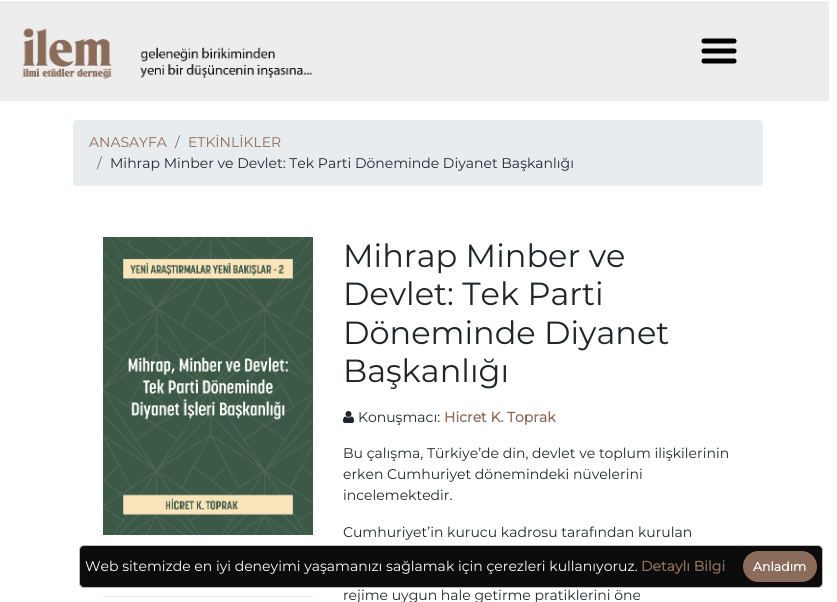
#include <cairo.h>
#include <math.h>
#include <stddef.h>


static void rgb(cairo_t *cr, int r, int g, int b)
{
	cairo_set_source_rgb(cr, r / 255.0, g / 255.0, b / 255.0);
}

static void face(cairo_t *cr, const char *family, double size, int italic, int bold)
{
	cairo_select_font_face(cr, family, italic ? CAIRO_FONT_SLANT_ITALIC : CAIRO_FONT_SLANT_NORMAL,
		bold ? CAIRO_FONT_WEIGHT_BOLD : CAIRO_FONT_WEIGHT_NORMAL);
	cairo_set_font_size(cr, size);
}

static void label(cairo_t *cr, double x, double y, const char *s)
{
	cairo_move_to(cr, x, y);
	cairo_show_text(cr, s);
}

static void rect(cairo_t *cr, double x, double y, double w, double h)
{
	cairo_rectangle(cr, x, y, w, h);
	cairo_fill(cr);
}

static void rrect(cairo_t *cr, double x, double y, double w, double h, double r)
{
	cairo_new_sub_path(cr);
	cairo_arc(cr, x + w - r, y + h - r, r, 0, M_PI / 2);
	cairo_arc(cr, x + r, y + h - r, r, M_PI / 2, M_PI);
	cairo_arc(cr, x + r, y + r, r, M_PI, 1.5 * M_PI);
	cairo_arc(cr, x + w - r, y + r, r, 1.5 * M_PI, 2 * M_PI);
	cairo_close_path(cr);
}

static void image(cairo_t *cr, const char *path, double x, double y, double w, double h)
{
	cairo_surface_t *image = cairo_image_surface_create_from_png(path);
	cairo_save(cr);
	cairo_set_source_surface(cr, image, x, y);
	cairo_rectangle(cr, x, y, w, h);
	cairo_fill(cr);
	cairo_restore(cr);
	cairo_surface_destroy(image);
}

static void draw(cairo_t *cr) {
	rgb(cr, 255, 255, 255);
	cairo_paint(cr);
	rgb(cr, 237, 237, 237);
	rect(cr, 0, 1, 829, 100);
	image(cr, "image0.png", 22, 28, 290, 51);
	image(cr, "image1.png", 701, 38, 36, 26);
	rgb(cr, 233, 236, 239);
	rrect(cr, 73, 120, 690, 66, 4);
	cairo_fill(cr);
	face(cr, "Montserrat Thin", 14, 0, 0);
	rgb(cr, 139, 108, 90);
	label(cr, 89, 147, "ANASAYFA");
	rgb(cr, 108, 117, 125);
	label(cr, 175, 147, "/");
	rgb(cr, 139, 108, 90);
	label(cr, 188, 147, "ETKİNLİKLER");
	rgb(cr, 108, 117, 125);
	label(cr, 97, 168, "/");
	rgb(cr, 33, 37, 41);
	label(cr, 110, 168, "Mihrap Minber ve Devlet: Tek Parti Döneminde Diyanet Başkanlığı");
	image(cr, "image2.png", 103, 237, 210, 298);
	rgb(cr, 230, 230, 230);
	rect(cr, 103, 596, 210, 1);
	face(cr, "Montserrat Thin", 32, 0, 0);
	rgb(cr, 33, 37, 41);
	label(cr, 343, 267, "Mihrap Minber ve");
	label(cr, 343, 305, "Devlet: Tek Parti");
	label(cr, 343, 344, "Döneminde Diyanet");
	label(cr, 343, 382, "Başkanlığı");
	image(cr, "image3.png", 343, 411, 11, 12);
	face(cr, "Montserrat Thin", 14, 0, 0);
	label(cr, 358, 422, "Konuşmacı:");
	face(cr, "Montserrat", 14, 0, 1);
	rgb(cr, 139, 108, 90);
	label(cr, 444, 422, "Hicret K. Toprak");
	face(cr, "Montserrat Thin", 14, 0, 0);
	rgb(cr, 33, 37, 41);
	label(cr, 343, 458, "Bu çalışma, Türkiye’de din, devlet ve toplum ilişkilerinin");
	label(cr, 343, 479, "erken Cumhuriyet dönemindeki nüvelerini");
	label(cr, 343, 500, "incelemektedir.");
	label(cr, 343, 537, "Cumhuriyet’in kurucu kadrosu tarafından kurulan");
	label(cr, 343, 600, "rejime uygun hale getirme pratiklerini öne");
	rgb(cr, 13, 12, 12);
	rrect(cr, 79.5, 545.5, 743, 42, 4.5);
	cairo_fill_preserve(cr);
	rgb(cr, 191, 188, 188);
	cairo_set_line_width(cr, 1);
	cairo_stroke(cr);
	rgb(cr, 254, 254, 254);
	label(cr, 85, 571, "Web sitemizde en iyi deneyimi yaşamanızı sağlamak için çerezleri kullanıyoruz.");
	face(cr, "Montserrat", 14, 0, 1);
	rgb(cr, 139, 108, 90);
	label(cr, 641, 571, "Detaylı Bilgi");
	rrect(cr, 743, 551, 74, 31, 15.5);
	cairo_fill(cr);
	face(cr, "Montserrat", 12.5, 0, 1);
	rgb(cr, 254, 254, 254);
	label(cr, 753, 571, "Anladım");
}

int main(void) {
	cairo_surface_t *surface = cairo_image_surface_create(CAIRO_FORMAT_RGB24, 837, 602);
	cairo_t *cr = cairo_create(surface);
	cairo_font_options_t *options = cairo_font_options_create();
	cairo_font_options_set_hint_metrics(options, CAIRO_HINT_METRICS_OFF);
	cairo_font_options_set_hint_style(options, CAIRO_HINT_STYLE_NONE);
	cairo_set_font_options(cr, options);
	cairo_set_miter_limit(cr, 4);
	draw(cr);
	cairo_surface_write_to_png(surface, "render.png");
	cairo_font_options_destroy(options);
	cairo_destroy(cr);
	cairo_surface_destroy(surface);
	return 0;
}
